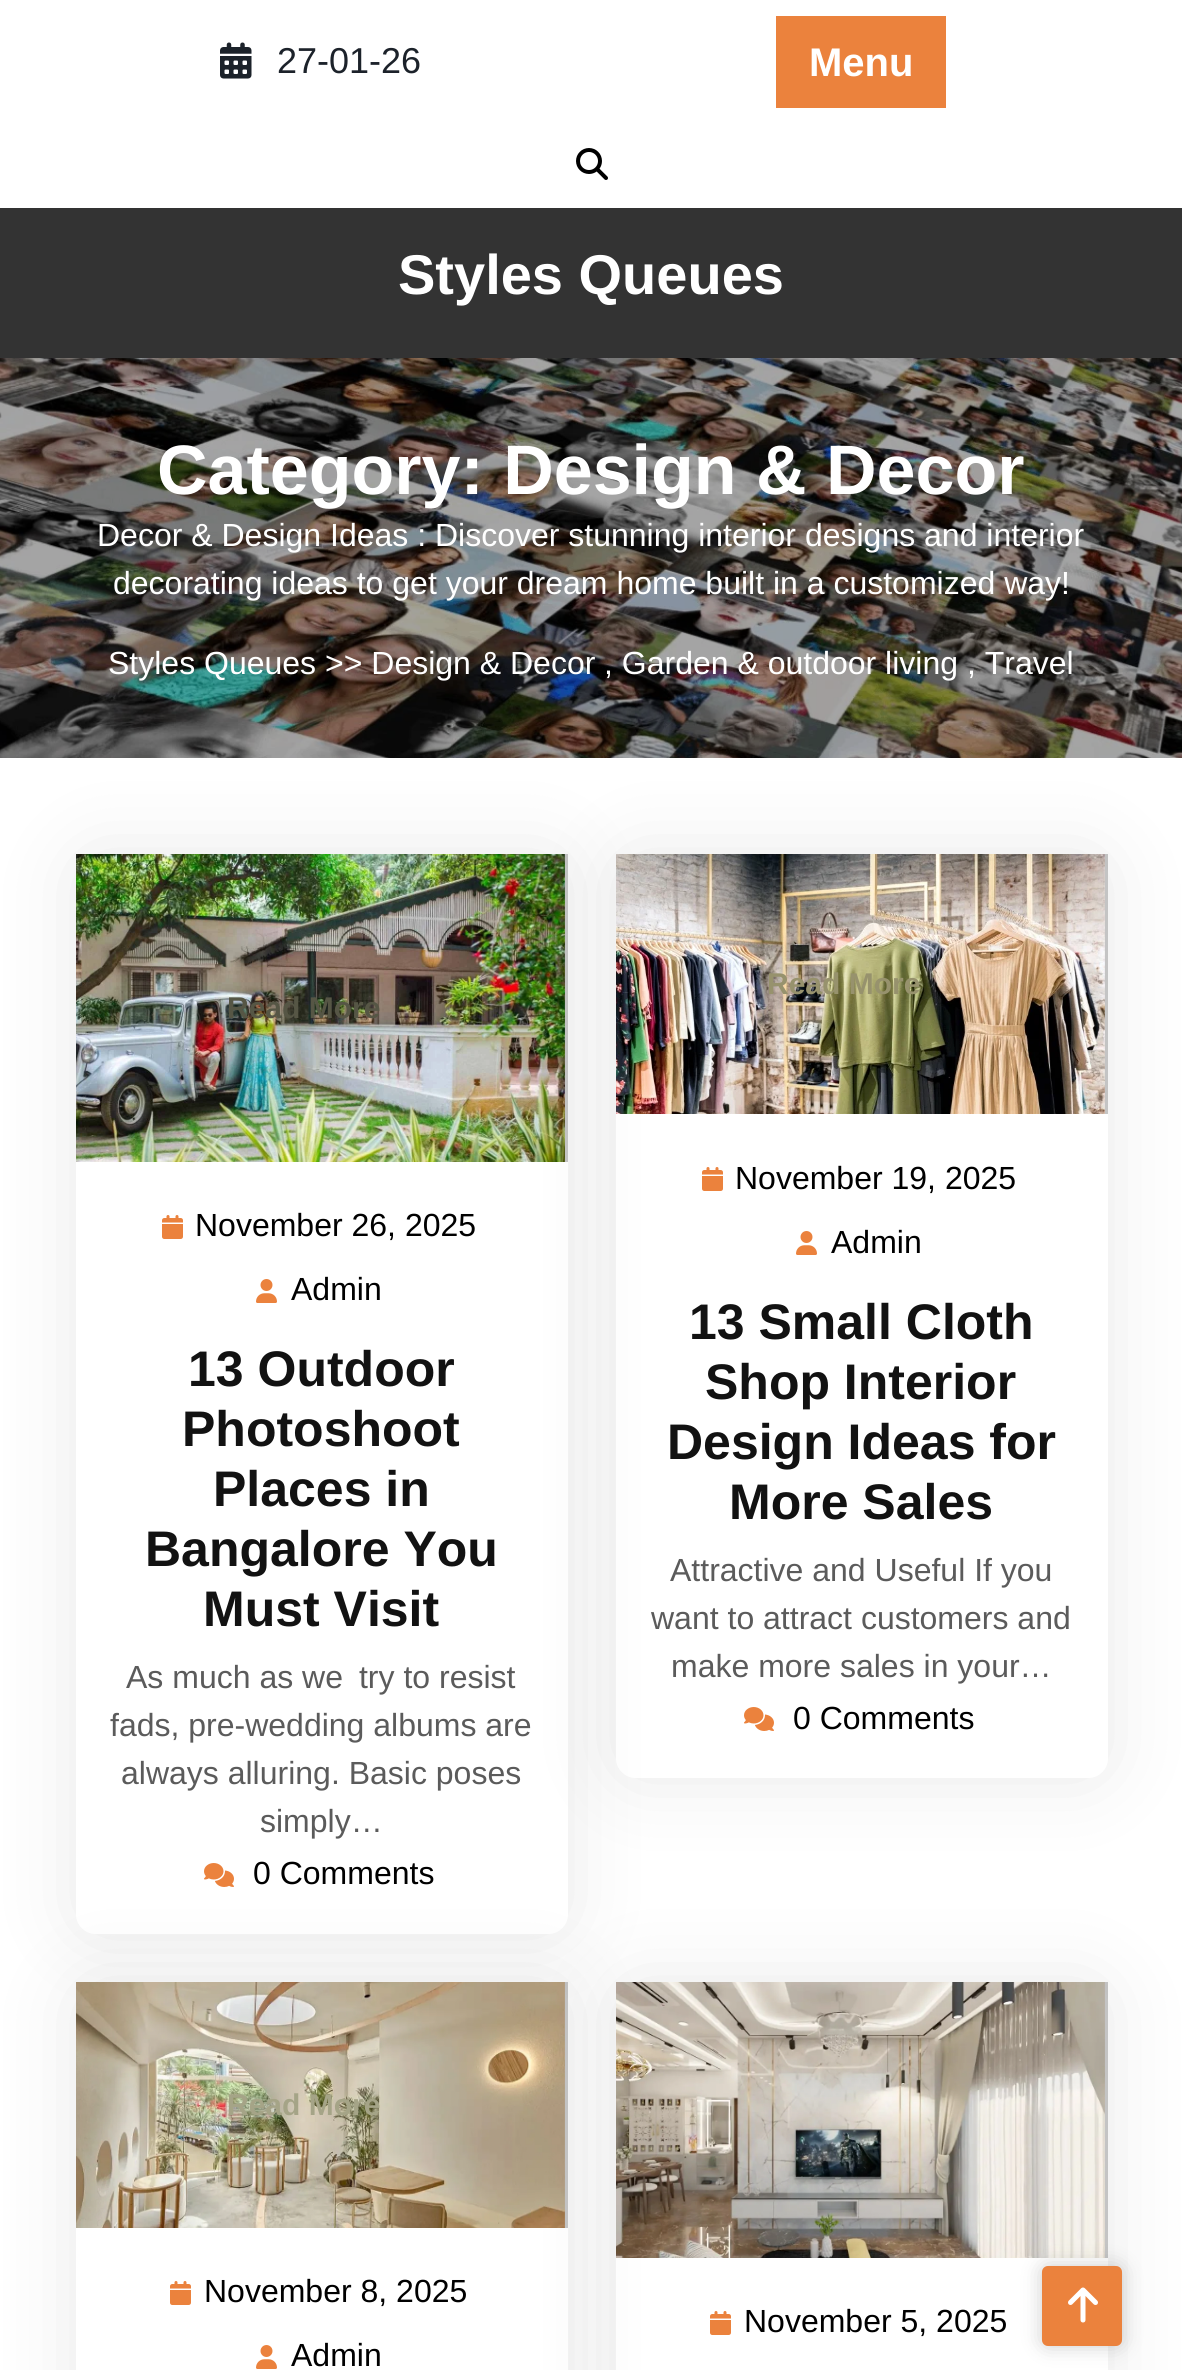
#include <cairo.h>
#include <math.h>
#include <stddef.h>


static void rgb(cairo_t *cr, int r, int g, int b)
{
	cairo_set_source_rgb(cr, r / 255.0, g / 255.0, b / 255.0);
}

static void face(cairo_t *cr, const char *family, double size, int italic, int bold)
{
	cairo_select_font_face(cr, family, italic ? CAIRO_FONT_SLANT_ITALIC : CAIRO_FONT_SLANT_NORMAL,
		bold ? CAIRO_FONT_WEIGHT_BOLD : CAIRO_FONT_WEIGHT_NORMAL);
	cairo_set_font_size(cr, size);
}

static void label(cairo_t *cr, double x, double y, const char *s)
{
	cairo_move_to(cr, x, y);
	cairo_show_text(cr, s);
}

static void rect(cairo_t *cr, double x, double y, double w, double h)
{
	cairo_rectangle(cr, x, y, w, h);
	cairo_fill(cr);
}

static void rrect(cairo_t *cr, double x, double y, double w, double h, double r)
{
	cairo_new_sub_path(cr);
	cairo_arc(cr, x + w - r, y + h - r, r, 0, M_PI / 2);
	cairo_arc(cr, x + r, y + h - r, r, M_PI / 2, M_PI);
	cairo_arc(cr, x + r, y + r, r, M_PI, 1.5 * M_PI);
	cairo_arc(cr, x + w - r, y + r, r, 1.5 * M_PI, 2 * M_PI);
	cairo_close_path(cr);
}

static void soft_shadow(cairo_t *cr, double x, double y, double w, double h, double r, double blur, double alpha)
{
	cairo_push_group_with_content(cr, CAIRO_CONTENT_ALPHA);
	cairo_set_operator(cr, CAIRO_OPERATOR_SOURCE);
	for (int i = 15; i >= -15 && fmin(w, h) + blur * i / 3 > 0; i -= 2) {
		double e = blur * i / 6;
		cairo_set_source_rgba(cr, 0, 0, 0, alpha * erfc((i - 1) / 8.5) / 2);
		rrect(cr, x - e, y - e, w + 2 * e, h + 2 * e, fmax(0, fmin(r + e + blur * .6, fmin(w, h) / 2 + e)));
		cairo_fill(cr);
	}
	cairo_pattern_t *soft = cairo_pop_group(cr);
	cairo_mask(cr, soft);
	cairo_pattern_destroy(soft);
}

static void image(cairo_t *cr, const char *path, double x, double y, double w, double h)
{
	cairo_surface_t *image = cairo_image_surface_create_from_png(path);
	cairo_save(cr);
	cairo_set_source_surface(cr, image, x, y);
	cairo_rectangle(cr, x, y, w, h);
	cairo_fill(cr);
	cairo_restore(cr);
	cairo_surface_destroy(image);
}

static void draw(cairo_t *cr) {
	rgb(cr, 255, 255, 255);
	cairo_paint(cr);
	image(cr, "image0.png", 220, 42, 32, 37);
	face(cr, "Liberation Sans", 36, 0, 0);
	rgb(cr, 28, 34, 42);
	label(cr, 277, 73, "27-01-26");
	rgb(cr, 235, 130, 61);
	rect(cr, 776, 16, 170, 92);
	face(cr, "Liberation Sans", 40, 0, 1);
	rgb(cr, 255, 255, 255);
	label(cr, 809, 76, "Menu");
	image(cr, "image1.png", 576, 148, 32, 32);
	rgb(cr, 51, 51, 51);
	rect(cr, 0, 208, 1182, 150);
	face(cr, "Liberation Sans", 56, 0, 1);
	rgb(cr, 255, 255, 255);
	label(cr, 398, 294, "Styles Queues");
	cairo_save(cr);
	cairo_set_fill_rule(cr, CAIRO_FILL_RULE_EVEN_ODD);
	cairo_new_path(cr);
	cairo_move_to(cr, 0, 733);
	cairo_line_to(cr, 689, 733);
	cairo_line_to(cr, 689, 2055);
	cairo_line_to(cr, 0, 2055);
	cairo_close_path(cr);
	cairo_move_to(cr, 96, 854);
	cairo_line_to(cr, 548, 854);
	cairo_curve_to(cr, 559, 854, 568, 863, 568, 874);
	cairo_line_to(cr, 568, 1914);
	cairo_curve_to(cr, 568, 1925, 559, 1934, 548, 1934);
	cairo_line_to(cr, 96, 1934);
	cairo_curve_to(cr, 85, 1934, 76, 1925, 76, 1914);
	cairo_line_to(cr, 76, 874);
	cairo_curve_to(cr, 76, 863, 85, 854, 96, 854);
	cairo_close_path(cr);
	cairo_clip(cr);
	rgb(cr, 0, 0, 0);
	soft_shadow(cr, 76, 854, 492, 1080, 20, 40, 0.09);
	cairo_restore(cr);
	cairo_save(cr);
	cairo_set_fill_rule(cr, CAIRO_FILL_RULE_EVEN_ODD);
	cairo_new_path(cr);
	cairo_move_to(cr, 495, 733);
	cairo_line_to(cr, 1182, 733);
	cairo_line_to(cr, 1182, 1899);
	cairo_line_to(cr, 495, 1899);
	cairo_close_path(cr);
	cairo_move_to(cr, 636, 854);
	cairo_line_to(cr, 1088, 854);
	cairo_curve_to(cr, 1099, 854, 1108, 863, 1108, 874);
	cairo_line_to(cr, 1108, 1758);
	cairo_curve_to(cr, 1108, 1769, 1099, 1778, 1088, 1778);
	cairo_line_to(cr, 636, 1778);
	cairo_curve_to(cr, 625, 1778, 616, 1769, 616, 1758);
	cairo_line_to(cr, 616, 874);
	cairo_curve_to(cr, 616, 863, 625, 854, 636, 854);
	cairo_close_path(cr);
	cairo_clip(cr);
	rgb(cr, 0, 0, 0);
	soft_shadow(cr, 616, 854, 492, 924, 20, 40, 0.09);
	cairo_restore(cr);
	image(cr, "image2.png", 0, 358, 1182, 400);
	face(cr, "Liberation Sans", 70, 0, 1);
	label(cr, 157, 494, "Category: Design & Decor");
	face(cr, "Liberation Sans", 32, 0, 0);
	label(cr, 97, 546, "Decor & Design Ideas : Discover stunning interior designs and interior");
	label(cr, 113, 594, "decorating ideas to get your dream home built in a customized way!");
	label(cr, 108, 674, "Styles Queues");
	label(cr, 325, 674, ">> Design & Decor");
	label(cr, 604, 674, ", Garden & outdoor living");
	label(cr, 967, 674, ", Travel");
	cairo_set_source_rgba(cr, 0.671, 0.671, 0.671, 0.7);
	rect(cr, 564, 854, 4, 308);
	image(cr, "image3.png", 76, 854, 489, 308);
	face(cr, "Liberation Sans", 30, 0, 1);
	rgb(cr, 86, 86, 69);
	label(cr, 227, 1018, "Read More");
	image(cr, "image4.png", 162, 1215, 21, 24);
	face(cr, "Liberation Sans", 32, 0, 0);
	rgb(cr, 0, 0, 0);
	label(cr, 195, 1236, "November 26, 2025");
	image(cr, "image5.png", 256, 1279, 21, 24);
	label(cr, 291, 1300, "Admin");
	face(cr, "Liberation Sans", 50, 0, 1);
	rgb(cr, 18, 18, 18);
	label(cr, 188, 1386, "13 Outdoor");
	label(cr, 182, 1446, "Photoshoot");
	label(cr, 213, 1506, "Places in");
	label(cr, 145, 1566, "Bangalore You");
	label(cr, 203, 1626, "Must Visit");
	face(cr, "Liberation Sans", 32, 0, 0);
	rgb(cr, 91, 91, 91);
	label(cr, 126, 1688, "As much as we try to resist");
	label(cr, 110, 1736, "fads, pre-wedding albums are");
	label(cr, 121, 1784, "always alluring. Basic poses");
	label(cr, 260, 1832, "simply…");
	image(cr, "image6.png", 204, 1863, 30, 24);
	rgb(cr, 0, 0, 0);
	label(cr, 253, 1884, "0 Comments");
	cairo_set_source_rgba(cr, 0.671, 0.671, 0.671, 0.7);
	rect(cr, 1104, 854, 4, 260);
	image(cr, "image7.png", 616, 854, 489, 260);
	face(cr, "Liberation Sans", 30, 0, 1);
	rgb(cr, 151, 146, 109);
	label(cr, 767, 994, "Read More");
	image(cr, "image4.png", 702, 1167, 21, 24);
	face(cr, "Liberation Sans", 32, 0, 0);
	rgb(cr, 0, 0, 0);
	label(cr, 735, 1189, "November 19, 2025");
	image(cr, "image5.png", 796, 1231, 21, 24);
	label(cr, 831, 1253, "Admin");
	face(cr, "Liberation Sans", 50, 0, 1);
	rgb(cr, 18, 18, 18);
	label(cr, 689, 1339, "13 Small Cloth");
	label(cr, 705, 1399, "Shop Interior");
	label(cr, 667, 1459, "Design Ideas for");
	label(cr, 729, 1519, "More Sales");
	face(cr, "Liberation Sans", 32, 0, 0);
	rgb(cr, 91, 91, 91);
	label(cr, 670, 1581, "Attractive and Useful If you");
	label(cr, 651, 1629, "want to attract customers and");
	label(cr, 671, 1677, "make more sales in your…");
	image(cr, "image6.png", 744, 1707, 30, 24);
	rgb(cr, 0, 0, 0);
	label(cr, 793, 1729, "0 Comments");
	cairo_save(cr);
	cairo_set_fill_rule(cr, CAIRO_FILL_RULE_EVEN_ODD);
	cairo_new_path(cr);
	cairo_move_to(cr, 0, 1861);
	cairo_line_to(cr, 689, 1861);
	cairo_line_to(cr, 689, 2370);
	cairo_line_to(cr, 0, 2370);
	cairo_close_path(cr);
	cairo_move_to(cr, 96, 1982);
	cairo_line_to(cr, 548, 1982);
	cairo_curve_to(cr, 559, 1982, 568, 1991, 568, 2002);
	cairo_line_to(cr, 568, 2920);
	cairo_curve_to(cr, 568, 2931, 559, 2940, 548, 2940);
	cairo_line_to(cr, 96, 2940);
	cairo_curve_to(cr, 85, 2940, 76, 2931, 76, 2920);
	cairo_line_to(cr, 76, 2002);
	cairo_curve_to(cr, 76, 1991, 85, 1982, 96, 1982);
	cairo_close_path(cr);
	cairo_clip(cr);
	rgb(cr, 0, 0, 0);
	soft_shadow(cr, 76, 1982, 492, 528, 20, 40, 0.09);
	cairo_restore(cr);
	cairo_save(cr);
	cairo_set_fill_rule(cr, CAIRO_FILL_RULE_EVEN_ODD);
	cairo_new_path(cr);
	cairo_move_to(cr, 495, 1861);
	cairo_line_to(cr, 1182, 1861);
	cairo_line_to(cr, 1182, 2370);
	cairo_line_to(cr, 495, 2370);
	cairo_close_path(cr);
	cairo_move_to(cr, 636, 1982);
	cairo_line_to(cr, 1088, 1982);
	cairo_curve_to(cr, 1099, 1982, 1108, 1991, 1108, 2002);
	cairo_line_to(cr, 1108, 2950);
	cairo_curve_to(cr, 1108, 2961, 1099, 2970, 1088, 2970);
	cairo_line_to(cr, 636, 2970);
	cairo_curve_to(cr, 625, 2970, 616, 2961, 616, 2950);
	cairo_line_to(cr, 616, 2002);
	cairo_curve_to(cr, 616, 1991, 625, 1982, 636, 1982);
	cairo_close_path(cr);
	cairo_clip(cr);
	rgb(cr, 0, 0, 0);
	soft_shadow(cr, 616, 1982, 492, 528, 20, 40, 0.09);
	cairo_restore(cr);
	cairo_set_source_rgba(cr, 0.671, 0.671, 0.671, 0.7);
	rect(cr, 564, 1982, 4, 246);
	image(cr, "image8.png", 76, 1982, 489, 246);
	face(cr, "Liberation Sans", 30, 0, 1);
	rgb(cr, 165, 164, 135);
	label(cr, 227, 2115, "Read More");
	image(cr, "image4.png", 170, 2281, 21, 24);
	face(cr, "Liberation Sans", 32, 0, 0);
	rgb(cr, 0, 0, 0);
	label(cr, 204, 2302, "November 8, 2025");
	image(cr, "image5.png", 256, 2345, 21, 24);
	label(cr, 291, 2366, "Admin");
	cairo_set_source_rgba(cr, 0.671, 0.671, 0.671, 0.7);
	rect(cr, 1104, 1982, 4, 276);
	image(cr, "image9.png", 616, 1982, 489, 276);
	image(cr, "image4.png", 710, 2311, 21, 24);
	rgb(cr, 0, 0, 0);
	label(cr, 744, 2332, "November 5, 2025");
	rgb(cr, 0, 0, 0);
	soft_shadow(cr, 1042, 2266, 80, 80, 6, 10, 0.2);
	rgb(cr, 235, 130, 61);
	rrect(cr, 1042, 2266, 80, 80, 6);
	cairo_fill(cr);
	image(cr, "image10.png", 1068, 2287, 30, 36);
}

int main(void) {
	cairo_surface_t *surface = cairo_image_surface_create(CAIRO_FORMAT_RGB24, 1182, 2370);
	cairo_t *cr = cairo_create(surface);
	cairo_font_options_t *options = cairo_font_options_create();
	cairo_font_options_set_hint_metrics(options, CAIRO_HINT_METRICS_OFF);
	cairo_font_options_set_hint_style(options, CAIRO_HINT_STYLE_NONE);
	cairo_set_font_options(cr, options);
	cairo_set_miter_limit(cr, 4);
	draw(cr);
	cairo_surface_write_to_png(surface, "render.png");
	cairo_font_options_destroy(options);
	cairo_destroy(cr);
	cairo_surface_destroy(surface);
	return 0;
}
